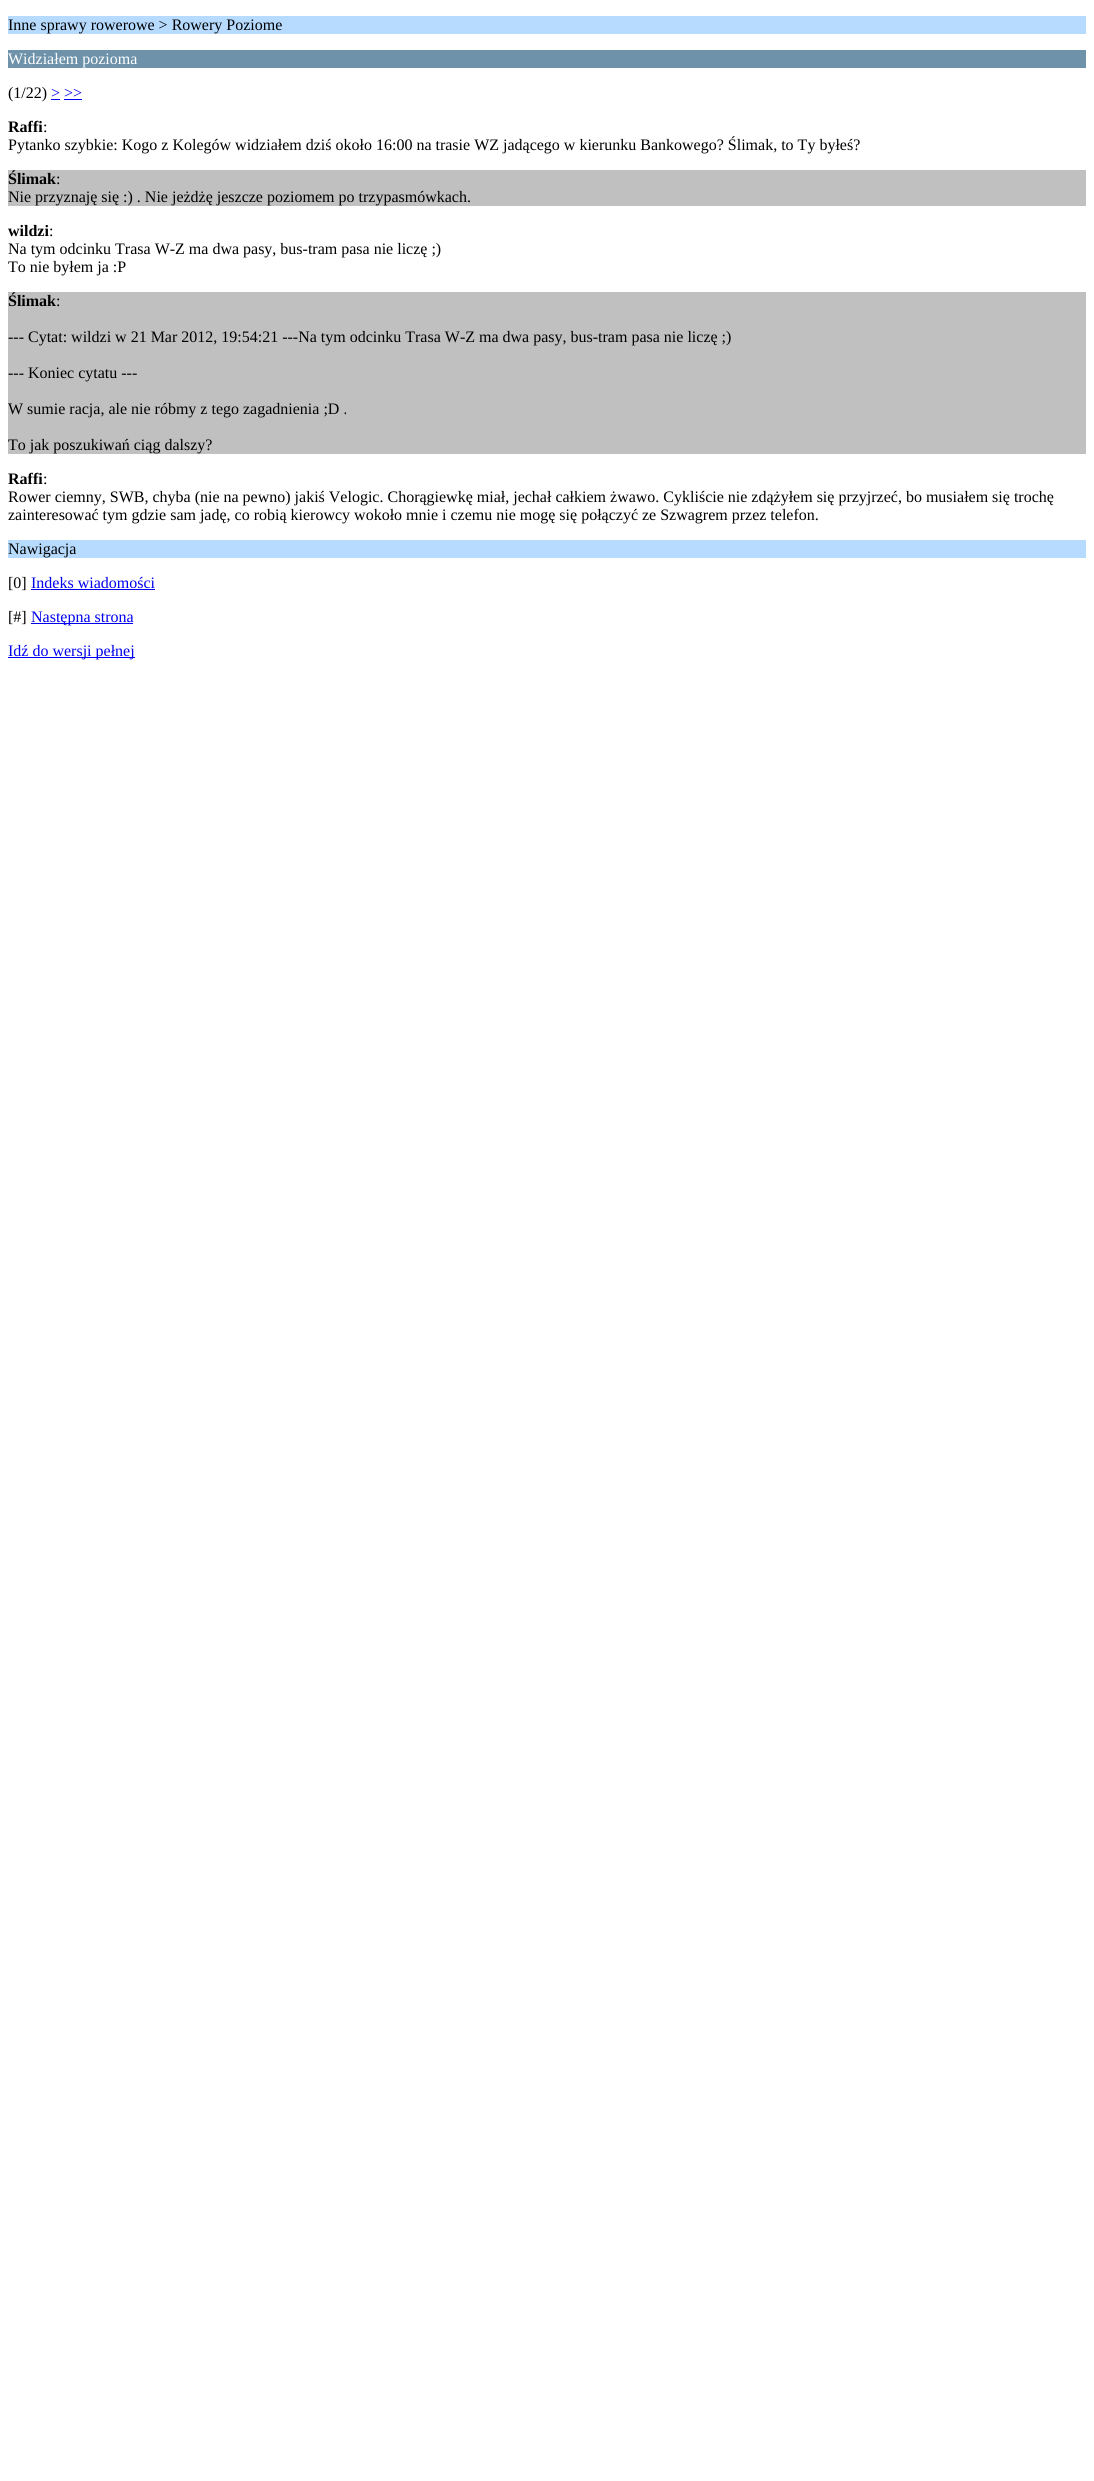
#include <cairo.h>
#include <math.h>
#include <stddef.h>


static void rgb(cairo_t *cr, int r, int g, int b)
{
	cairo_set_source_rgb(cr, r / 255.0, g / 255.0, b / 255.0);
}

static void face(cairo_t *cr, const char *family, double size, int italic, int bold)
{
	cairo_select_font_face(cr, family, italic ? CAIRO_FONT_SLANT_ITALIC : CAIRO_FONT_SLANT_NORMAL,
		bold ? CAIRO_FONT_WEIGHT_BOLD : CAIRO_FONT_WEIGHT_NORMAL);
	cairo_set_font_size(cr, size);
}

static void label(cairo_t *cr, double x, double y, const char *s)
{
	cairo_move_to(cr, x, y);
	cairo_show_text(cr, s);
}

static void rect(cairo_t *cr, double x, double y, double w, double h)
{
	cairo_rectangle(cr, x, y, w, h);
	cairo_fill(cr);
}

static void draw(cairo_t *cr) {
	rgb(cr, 255, 255, 255);
	cairo_paint(cr);
	rgb(cr, 182, 219, 255);
	rect(cr, 8, 16, 1078, 18);
	face(cr, "Liberation Serif", 16, 0, 0);
	rgb(cr, 0, 0, 0);
	label(cr, 8, 30, "Inne sprawy rowerowe > Rowery Poziome");
	rgb(cr, 109, 146, 170);
	rect(cr, 8, 50, 1078, 18);
	rgb(cr, 255, 255, 255);
	label(cr, 8, 64, "Widziałem pozioma");
	rgb(cr, 0, 0, 0);
	label(cr, 8, 98, "(1/22)");
	rgb(cr, 0, 0, 238);
	label(cr, 51, 98, "> >>");
	rect(cr, 51, 99, 9, 1);
	rect(cr, 64, 99, 18, 1);
	face(cr, "Liberation Serif", 16, 0, 1);
	rgb(cr, 0, 0, 0);
	label(cr, 8, 132, "Raffi");
	face(cr, "Liberation Serif", 16, 0, 0);
	label(cr, 43, 132, ":");
	label(cr, 8, 150, "Pytanko szybkie: Kogo z Kolegów widziałem dziś około 16:00 na trasie WZ jadącego w kierunku Bankowego? Ślimak, to Ty byłeś?");
	rgb(cr, 192, 192, 192);
	rect(cr, 8, 170, 1078, 36);
	face(cr, "Liberation Serif", 16, 0, 1);
	rgb(cr, 0, 0, 0);
	label(cr, 8, 184, "Ślimak");
	face(cr, "Liberation Serif", 16, 0, 0);
	label(cr, 56, 184, ":");
	label(cr, 8, 202, "Nie przyznaję się :) . Nie jeżdżę jeszcze poziomem po trzypasmówkach.");
	face(cr, "Liberation Serif", 16, 0, 1);
	label(cr, 8, 236, "wildzi");
	face(cr, "Liberation Serif", 16, 0, 0);
	label(cr, 49, 236, ":");
	label(cr, 8, 254, "Na tym odcinku Trasa W-Z ma dwa pasy, bus-tram pasa nie liczę ;)");
	label(cr, 8, 272, "To nie byłem ja :P");
	rgb(cr, 192, 192, 192);
	rect(cr, 8, 292, 1078, 162);
	face(cr, "Liberation Serif", 16, 0, 1);
	rgb(cr, 0, 0, 0);
	label(cr, 8, 306, "Ślimak");
	face(cr, "Liberation Serif", 16, 0, 0);
	label(cr, 56, 306, ":");
	label(cr, 8, 342, "--- Cytat: wildzi w 21 Mar 2012, 19:54:21 ---Na tym odcinku Trasa W-Z ma dwa pasy, bus-tram pasa nie liczę ;)");
	label(cr, 8, 378, "--- Koniec cytatu ---");
	label(cr, 8, 414, "W sumie racja, ale nie róbmy z tego zagadnienia ;D .");
	label(cr, 8, 450, "To jak poszukiwań ciąg dalszy?");
	face(cr, "Liberation Serif", 16, 0, 1);
	label(cr, 8, 484, "Raffi");
	face(cr, "Liberation Serif", 16, 0, 0);
	label(cr, 43, 484, ":");
	label(cr, 8, 502, "Rower ciemny, SWB, chyba (nie na pewno) jakiś Velogic. Chorągiewkę miał, jechał całkiem żwawo. Cykliście nie zdążyłem się przyjrzeć, bo musiałem się trochę");
	label(cr, 8, 520, "zainteresować tym gdzie sam jadę, co robią kierowcy wokoło mnie i czemu nie mogę się połączyć ze Szwagrem przez telefon.");
	rgb(cr, 182, 219, 255);
	rect(cr, 8, 540, 1078, 18);
	rgb(cr, 0, 0, 0);
	label(cr, 8, 554, "Nawigacja");
	label(cr, 8, 588, "[0]");
	rgb(cr, 0, 0, 238);
	label(cr, 31, 588, "Indeks wiadomości");
	rect(cr, 31, 589, 124, 1);
	rgb(cr, 0, 0, 0);
	label(cr, 8, 622, "[#]");
	rgb(cr, 0, 0, 238);
	rect(cr, 31, 623, 102, 1);
	label(cr, 31, 622, "Następna strona");
	rect(cr, 8, 657, 127, 1);
	label(cr, 8, 656, "Idź do wersji pełnej");
}

int main(void) {
	cairo_surface_t *surface = cairo_image_surface_create(CAIRO_FORMAT_RGB24, 1094, 2481);
	cairo_t *cr = cairo_create(surface);
	cairo_font_options_t *options = cairo_font_options_create();
	cairo_font_options_set_hint_metrics(options, CAIRO_HINT_METRICS_OFF);
	cairo_font_options_set_hint_style(options, CAIRO_HINT_STYLE_NONE);
	cairo_set_font_options(cr, options);
	cairo_set_miter_limit(cr, 4);
	draw(cr);
	cairo_surface_write_to_png(surface, "render.png");
	cairo_font_options_destroy(options);
	cairo_destroy(cr);
	cairo_surface_destroy(surface);
	return 0;
}
